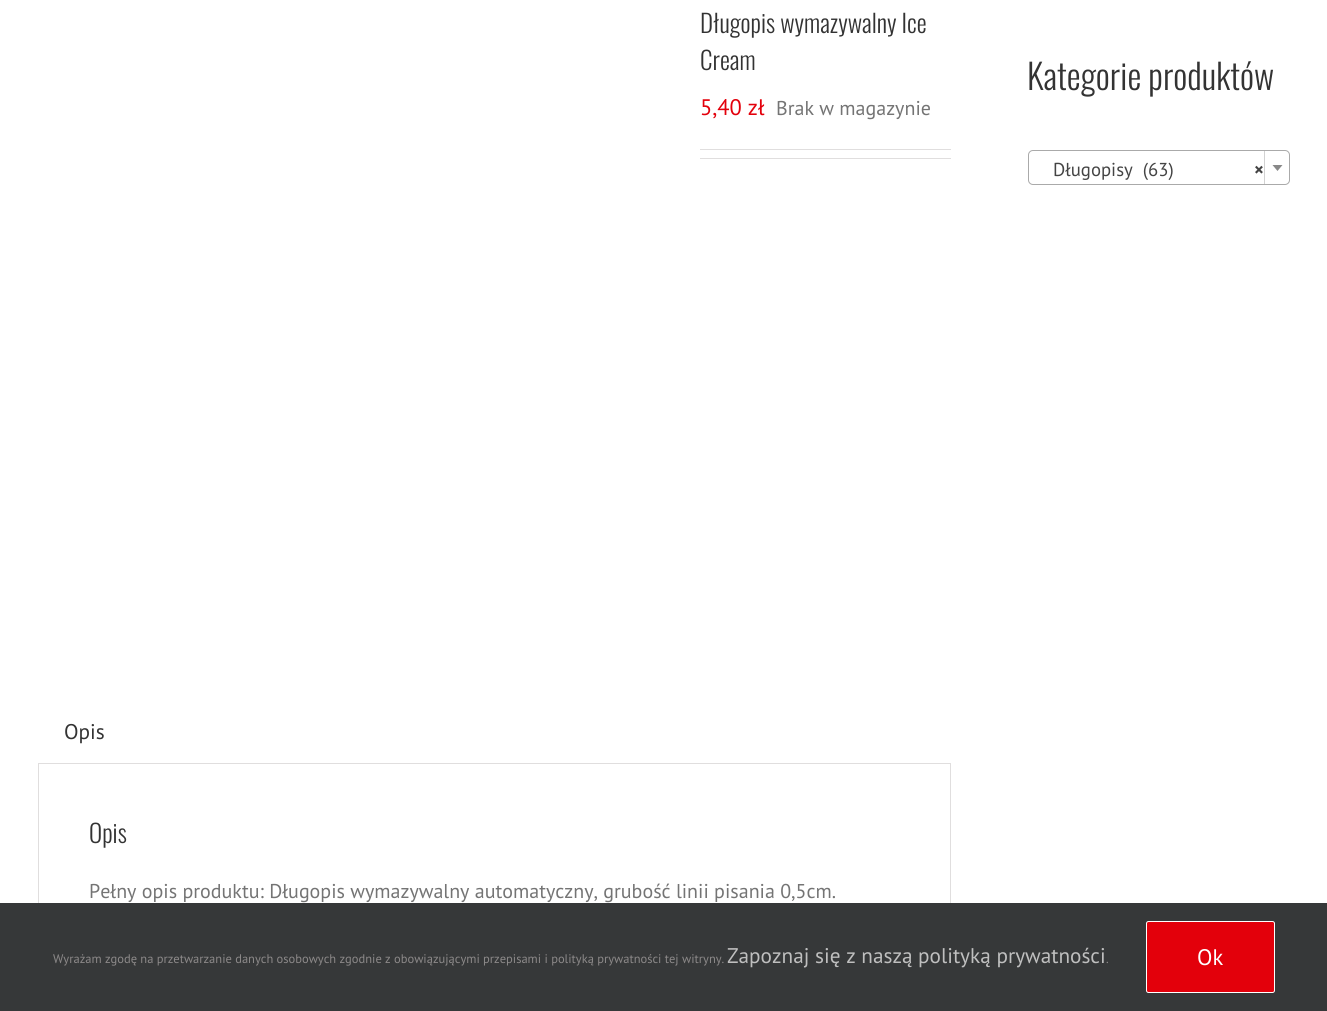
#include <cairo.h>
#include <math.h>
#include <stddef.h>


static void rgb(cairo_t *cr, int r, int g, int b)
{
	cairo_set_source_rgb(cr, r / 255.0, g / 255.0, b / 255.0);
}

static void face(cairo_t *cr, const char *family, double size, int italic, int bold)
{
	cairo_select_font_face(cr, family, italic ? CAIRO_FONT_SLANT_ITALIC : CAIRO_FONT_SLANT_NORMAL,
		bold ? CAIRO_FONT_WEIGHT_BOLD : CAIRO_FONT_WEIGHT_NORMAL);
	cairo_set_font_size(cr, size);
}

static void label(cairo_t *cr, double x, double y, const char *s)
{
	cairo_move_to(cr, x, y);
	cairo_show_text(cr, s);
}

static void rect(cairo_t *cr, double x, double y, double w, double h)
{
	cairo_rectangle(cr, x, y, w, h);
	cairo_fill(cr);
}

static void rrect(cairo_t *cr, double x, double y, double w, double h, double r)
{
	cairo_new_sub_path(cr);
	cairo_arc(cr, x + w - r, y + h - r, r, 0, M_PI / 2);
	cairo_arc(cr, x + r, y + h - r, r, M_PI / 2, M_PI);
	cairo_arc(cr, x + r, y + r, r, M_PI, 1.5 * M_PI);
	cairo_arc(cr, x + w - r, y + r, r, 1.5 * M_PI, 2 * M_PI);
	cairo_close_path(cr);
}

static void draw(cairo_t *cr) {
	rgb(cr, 255, 255, 255);
	cairo_paint(cr);
	face(cr, "Oswald Light", 25, 0, 0);
	rgb(cr, 51, 51, 51);
	label(cr, 700, 33, "Długopis wymazywalny Ice");
	label(cr, 700, 70, "Cream");
	face(cr, "PT Sans", 22.5, 0, 0);
	rgb(cr, 227, 0, 11);
	label(cr, 700, 115, "5,40 zł");
	face(cr, "PT Sans", 20, 0, 0);
	rgb(cr, 116, 116, 116);
	label(cr, 776, 115, "Brak w magazynie");
	rgb(cr, 224, 222, 222);
	rect(cr, 700, 149, 251, 1);
	rect(cr, 700, 158, 251, 1);
	rect(cr, 38, 763, 913, 1);
	face(cr, "PT Sans", 21.25, 0, 0);
	rgb(cr, 51, 51, 51);
	label(cr, 64, 739, "Opis");
	rgb(cr, 224, 222, 222);
	rect(cr, 950, 764, 1, 139);
	rect(cr, 38, 764, 1, 139);
	face(cr, "Oswald Light", 25, 0, 0);
	rgb(cr, 51, 51, 51);
	label(cr, 89, 843, "Opis");
	face(cr, "PT Sans", 20, 0, 0);
	rgb(cr, 116, 116, 116);
	label(cr, 89, 898, "Pełny opis produktu: Długopis wymazywalny automatyczny, grubość linii pisania 0,5cm.");
	face(cr, "Oswald Light", 35, 0, 0);
	rgb(cr, 51, 51, 51);
	label(cr, 1027, 90, "Kategorie produktów");
	rrect(cr, 1028.5, 150.5, 261, 34, 4.5);
	rgb(cr, 170, 170, 170);
	cairo_set_line_width(cr, 1);
	cairo_stroke(cr);
	face(cr, "PT Sans", 18.75, 0, 0);
	rgb(cr, 68, 68, 68);
	label(cr, 1053, 176, "Długopisy  (63)");
	face(cr, "PT Sans", 18.75, 0, 1);
	label(cr, 1254, 176, "×");
	rgb(cr, 210, 210, 210);
	rect(cr, 1264, 151, 1, 33);
	rgb(cr, 136, 136, 136);
	cairo_new_path(cr);
	cairo_move_to(cr, 1272.5, 165);
	cairo_line_to(cr, 1282.5, 165);
	cairo_line_to(cr, 1277.5, 171);
	cairo_close_path(cr);
	cairo_fill(cr);
	rgb(cr, 54, 56, 57);
	rect(cr, 0, 903, 1327, 108);
	face(cr, "PT Sans", 12.5, 0, 0);
	rgb(cr, 140, 137, 137);
	label(cr, 53, 963, "Wyrażam zgodę na przetwarzanie danych osobowych zgodnie z obowiązującymi przepisami i polityką prywatności tej witryny.");
	face(cr, "PT Sans", 21.25, 0, 0);
	rgb(cr, 191, 191, 191);
	label(cr, 727, 963, "Zapoznaj się z naszą polityką prywatności");
	face(cr, "PT Sans", 12.5, 0, 0);
	rgb(cr, 140, 137, 137);
	label(cr, 1106, 963, ".");
	rgb(cr, 227, 0, 11);
	rrect(cr, 1146.5, 921.5, 128, 71, 2);
	cairo_fill_preserve(cr);
	rgb(cr, 255, 255, 255);
	cairo_stroke(cr);
	face(cr, "PT Sans", 22.5, 0, 0);
	label(cr, 1197, 965, "Ok");
}

int main(void) {
	cairo_surface_t *surface = cairo_image_surface_create(CAIRO_FORMAT_RGB24, 1327, 1011);
	cairo_t *cr = cairo_create(surface);
	cairo_font_options_t *options = cairo_font_options_create();
	cairo_font_options_set_hint_metrics(options, CAIRO_HINT_METRICS_OFF);
	cairo_font_options_set_hint_style(options, CAIRO_HINT_STYLE_NONE);
	cairo_set_font_options(cr, options);
	cairo_set_miter_limit(cr, 4);
	draw(cr);
	cairo_surface_write_to_png(surface, "render.png");
	cairo_font_options_destroy(options);
	cairo_destroy(cr);
	cairo_surface_destroy(surface);
	return 0;
}
